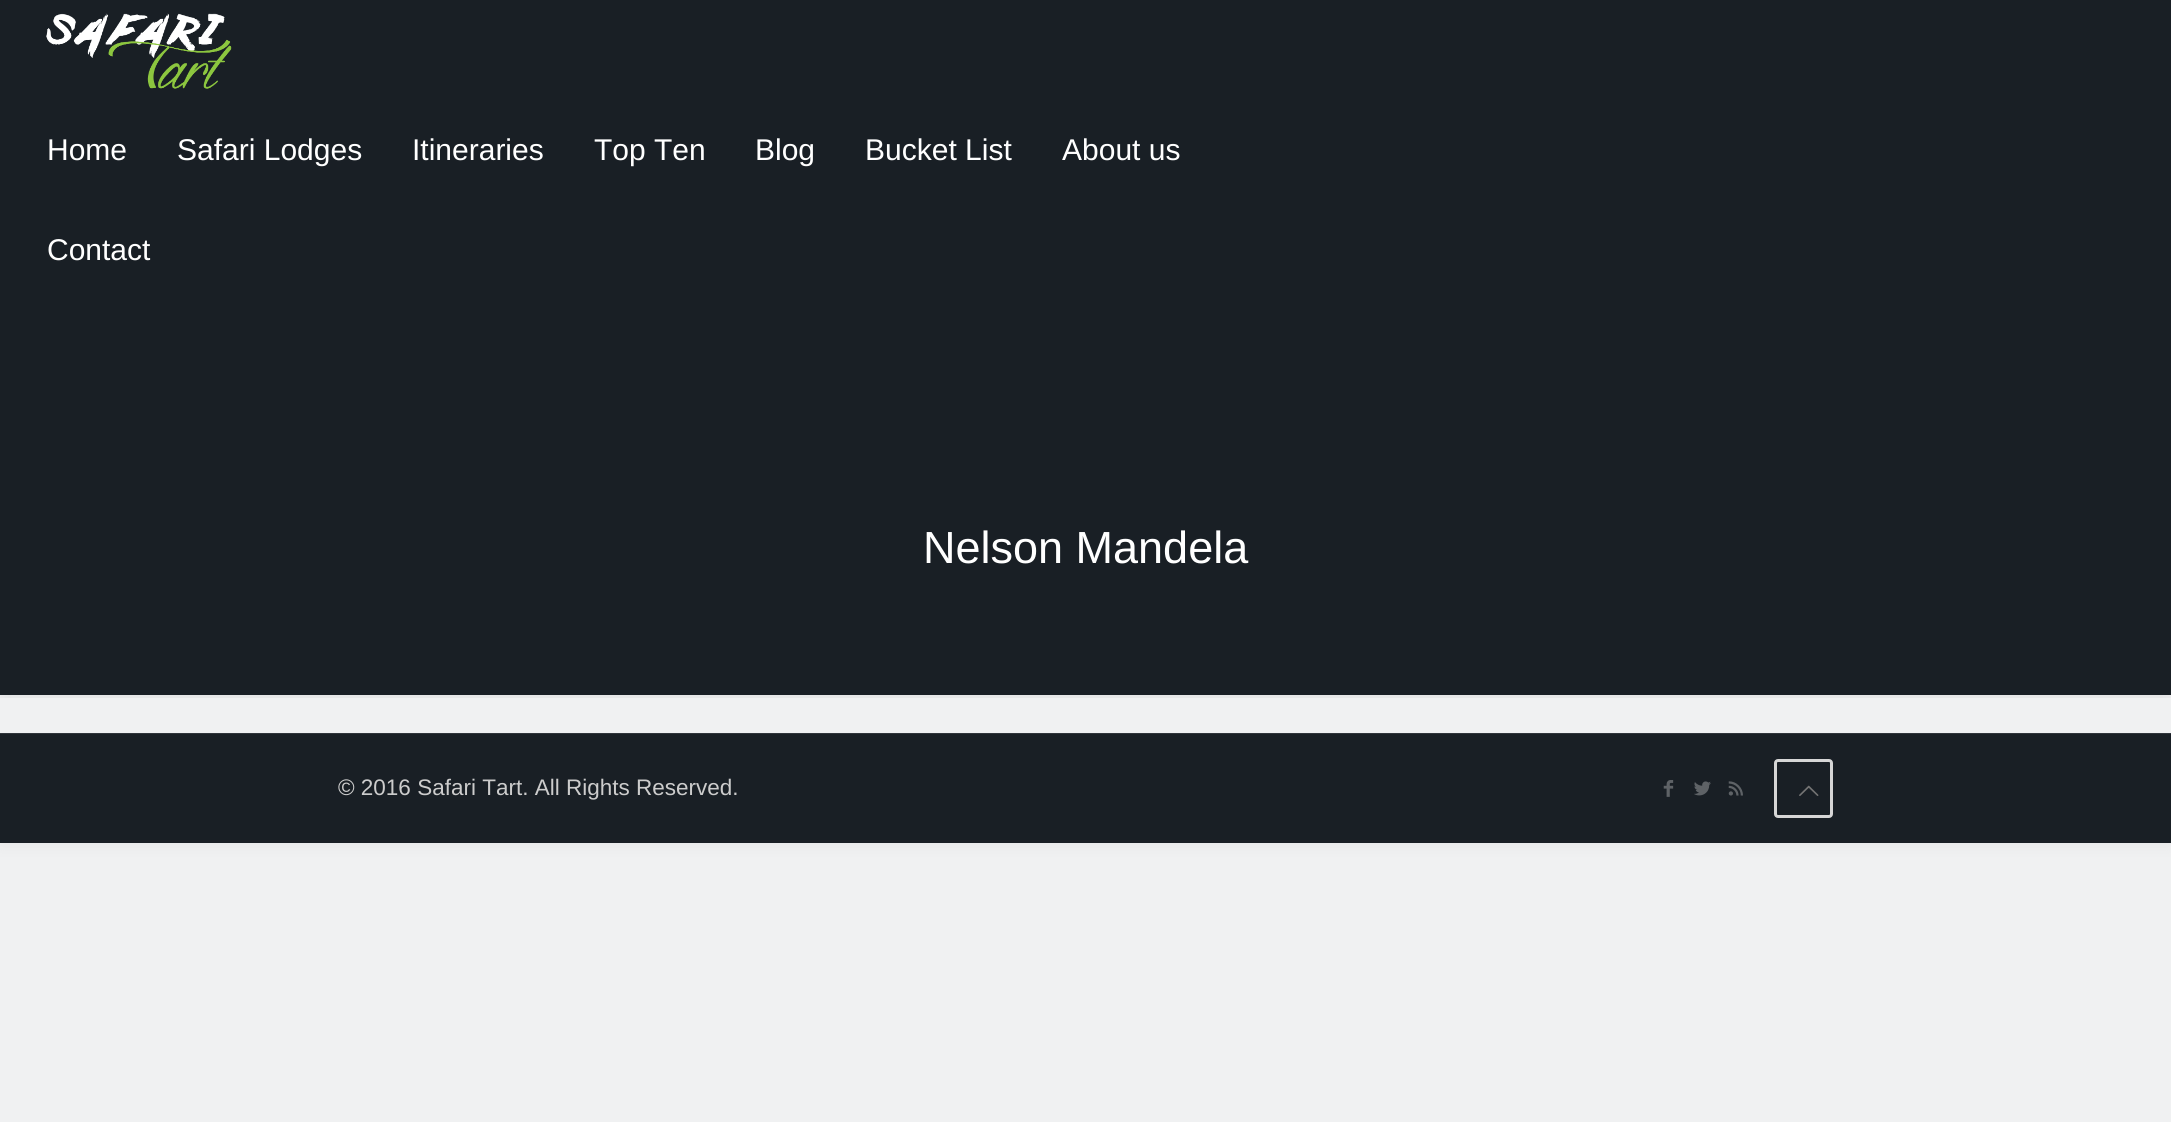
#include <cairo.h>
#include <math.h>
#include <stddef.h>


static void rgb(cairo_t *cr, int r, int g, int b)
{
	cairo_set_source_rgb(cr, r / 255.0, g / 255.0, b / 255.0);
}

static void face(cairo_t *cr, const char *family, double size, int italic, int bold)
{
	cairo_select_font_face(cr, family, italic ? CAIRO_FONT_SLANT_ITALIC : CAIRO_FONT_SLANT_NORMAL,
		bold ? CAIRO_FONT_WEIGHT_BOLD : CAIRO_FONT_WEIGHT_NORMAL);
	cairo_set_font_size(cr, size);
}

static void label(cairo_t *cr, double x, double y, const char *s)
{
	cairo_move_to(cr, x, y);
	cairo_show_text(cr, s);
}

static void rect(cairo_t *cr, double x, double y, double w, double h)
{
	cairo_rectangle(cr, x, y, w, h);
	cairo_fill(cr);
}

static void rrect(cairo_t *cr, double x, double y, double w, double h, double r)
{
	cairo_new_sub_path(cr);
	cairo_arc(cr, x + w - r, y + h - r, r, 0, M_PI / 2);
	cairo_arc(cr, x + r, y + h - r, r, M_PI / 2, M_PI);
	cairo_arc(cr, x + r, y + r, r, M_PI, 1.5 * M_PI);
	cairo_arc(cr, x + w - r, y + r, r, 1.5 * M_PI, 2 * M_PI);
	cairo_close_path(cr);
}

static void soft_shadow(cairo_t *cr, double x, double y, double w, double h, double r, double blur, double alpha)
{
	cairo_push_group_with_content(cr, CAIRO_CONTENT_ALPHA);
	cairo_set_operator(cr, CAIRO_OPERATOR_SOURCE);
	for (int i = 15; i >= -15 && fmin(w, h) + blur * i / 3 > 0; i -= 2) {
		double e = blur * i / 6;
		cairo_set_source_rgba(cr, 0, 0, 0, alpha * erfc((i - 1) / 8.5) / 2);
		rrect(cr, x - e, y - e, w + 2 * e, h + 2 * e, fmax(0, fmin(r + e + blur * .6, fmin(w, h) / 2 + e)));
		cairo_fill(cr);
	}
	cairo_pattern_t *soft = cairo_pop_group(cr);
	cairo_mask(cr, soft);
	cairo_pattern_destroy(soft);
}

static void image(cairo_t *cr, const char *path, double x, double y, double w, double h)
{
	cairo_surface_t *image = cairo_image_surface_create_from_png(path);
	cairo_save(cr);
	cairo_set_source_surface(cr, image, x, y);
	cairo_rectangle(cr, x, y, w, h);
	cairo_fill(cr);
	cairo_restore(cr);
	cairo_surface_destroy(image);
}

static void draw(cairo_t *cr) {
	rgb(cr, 240, 241, 242);
	cairo_paint(cr);
	rgb(cr, 0, 0, 0);
	soft_shadow(cr, 0, 0, 2171, 843, 0, 9.5, 0.06);
	rgb(cr, 240, 241, 242);
	rect(cr, 0, 698, 2171, 35);
	rgb(cr, 25, 31, 37);
	rect(cr, 0, 0, 2171, 695);
	image(cr, "image0.png", 46, 13, 186, 76);
	face(cr, "Liberation Sans", 30, 0, 0);
	rgb(cr, 255, 255, 255);
	label(cr, 47, 160, "Home");
	label(cr, 177, 160, "Safari Lodges");
	label(cr, 412, 160, "Itineraries");
	label(cr, 594, 160, "Top Ten");
	label(cr, 755, 160, "Blog");
	label(cr, 865, 160, "Bucket List");
	label(cr, 1062, 160, "About us");
	label(cr, 47, 260, "Contact");
	face(cr, "Liberation Sans", 45, 0, 0);
	label(cr, 923, 563, "Nelson Mandela");
	rgb(cr, 230, 231, 232);
	rect(cr, 11, 695, 2149, 3);
	rgb(cr, 25, 31, 37);
	rect(cr, 0, 734, 2171, 109);
	rgb(cr, 48, 53, 59);
	rect(cr, 0, 733, 2171, 1);
	face(cr, "Liberation Sans", 22.5, 0, 0);
	rgb(cr, 204, 204, 204);
	label(cr, 338, 795, "© 2016 Safari Tart. All Rights Reserved.");
	image(cr, "image1.png", 1663, 780, 11, 17);
	image(cr, "image2.png", 1694, 781, 17, 15);
	image(cr, "image3.png", 1728, 781, 15, 15);
	rrect(cr, 1775.5, 760.5, 56, 56, 2.5);
	rgb(cr, 214, 214, 214);
	cairo_set_line_width(cr, 3);
	cairo_stroke(cr);
	image(cr, "image4.png", 1799, 785, 20, 11);
}

int main(void) {
	cairo_surface_t *surface = cairo_image_surface_create(CAIRO_FORMAT_RGB24, 2171, 1122);
	cairo_t *cr = cairo_create(surface);
	cairo_font_options_t *options = cairo_font_options_create();
	cairo_font_options_set_hint_metrics(options, CAIRO_HINT_METRICS_OFF);
	cairo_font_options_set_hint_style(options, CAIRO_HINT_STYLE_NONE);
	cairo_set_font_options(cr, options);
	cairo_set_miter_limit(cr, 4);
	draw(cr);
	cairo_surface_write_to_png(surface, "render.png");
	cairo_font_options_destroy(options);
	cairo_destroy(cr);
	cairo_surface_destroy(surface);
	return 0;
}
